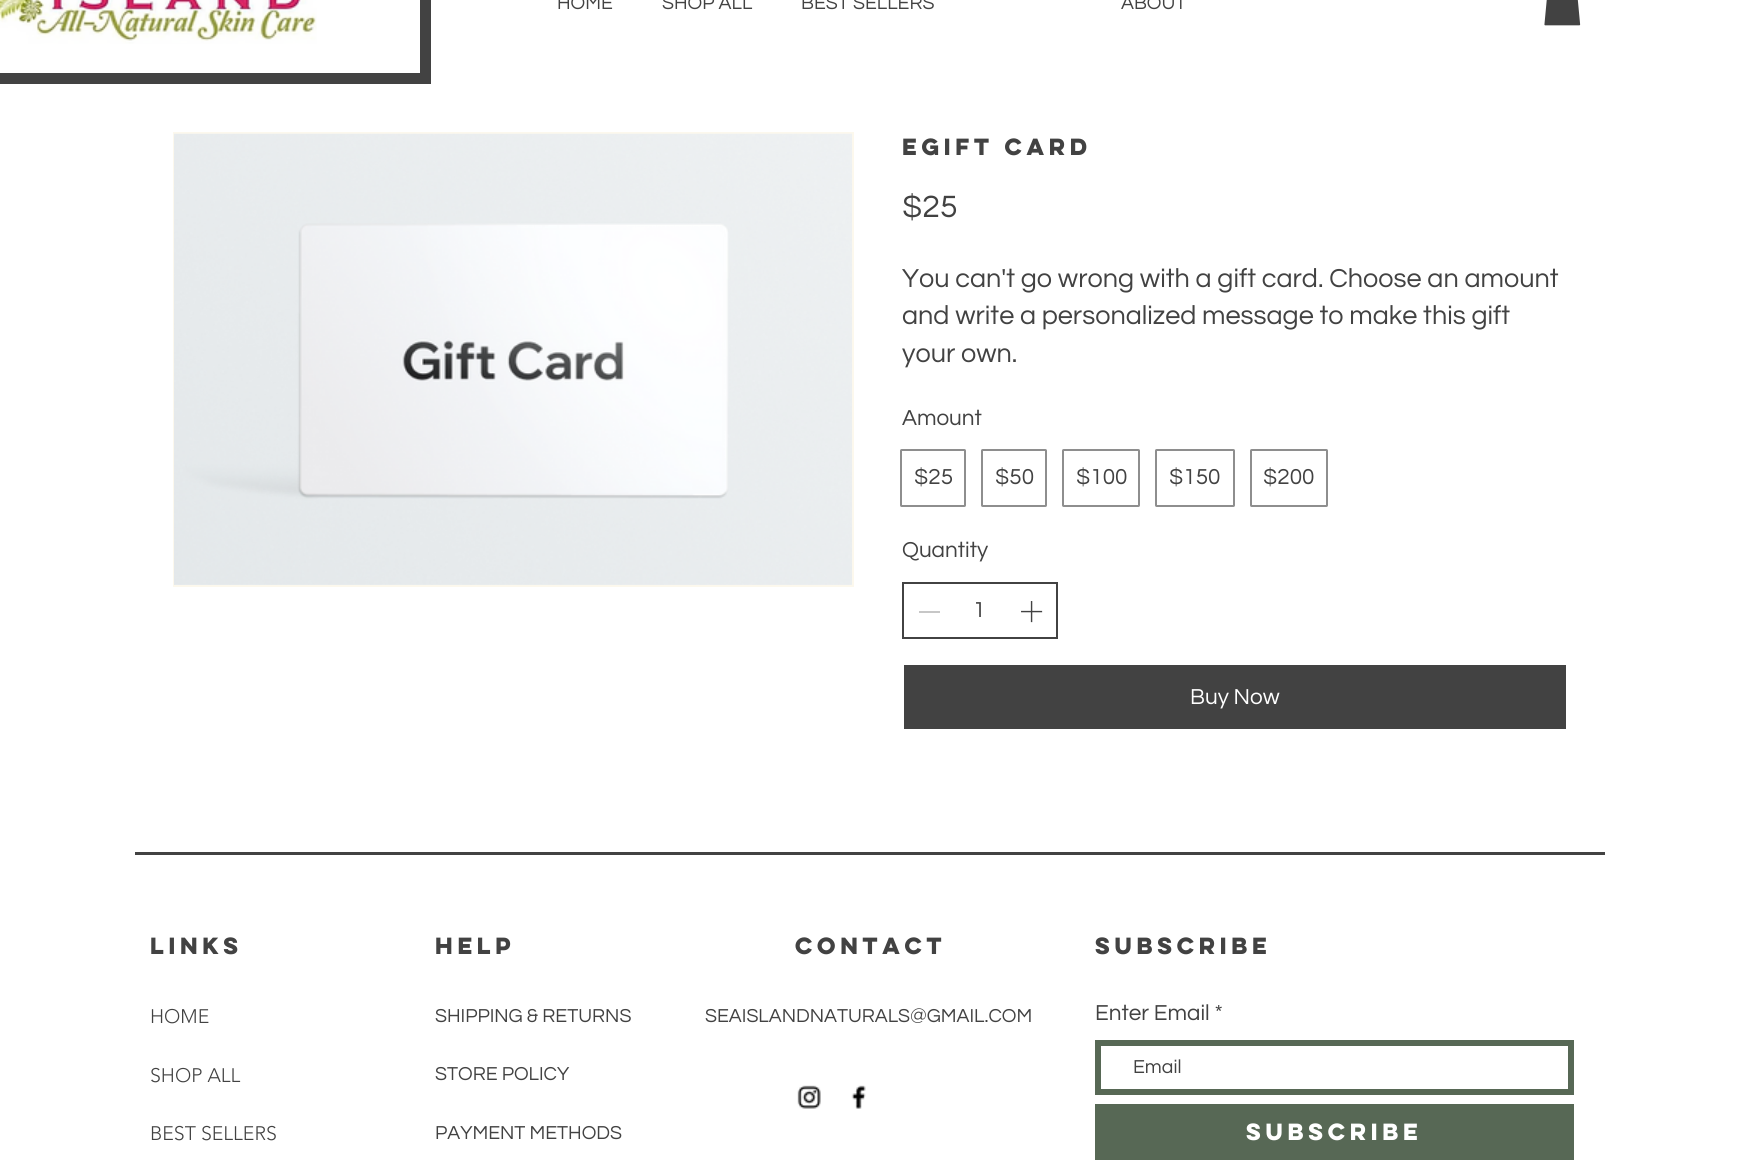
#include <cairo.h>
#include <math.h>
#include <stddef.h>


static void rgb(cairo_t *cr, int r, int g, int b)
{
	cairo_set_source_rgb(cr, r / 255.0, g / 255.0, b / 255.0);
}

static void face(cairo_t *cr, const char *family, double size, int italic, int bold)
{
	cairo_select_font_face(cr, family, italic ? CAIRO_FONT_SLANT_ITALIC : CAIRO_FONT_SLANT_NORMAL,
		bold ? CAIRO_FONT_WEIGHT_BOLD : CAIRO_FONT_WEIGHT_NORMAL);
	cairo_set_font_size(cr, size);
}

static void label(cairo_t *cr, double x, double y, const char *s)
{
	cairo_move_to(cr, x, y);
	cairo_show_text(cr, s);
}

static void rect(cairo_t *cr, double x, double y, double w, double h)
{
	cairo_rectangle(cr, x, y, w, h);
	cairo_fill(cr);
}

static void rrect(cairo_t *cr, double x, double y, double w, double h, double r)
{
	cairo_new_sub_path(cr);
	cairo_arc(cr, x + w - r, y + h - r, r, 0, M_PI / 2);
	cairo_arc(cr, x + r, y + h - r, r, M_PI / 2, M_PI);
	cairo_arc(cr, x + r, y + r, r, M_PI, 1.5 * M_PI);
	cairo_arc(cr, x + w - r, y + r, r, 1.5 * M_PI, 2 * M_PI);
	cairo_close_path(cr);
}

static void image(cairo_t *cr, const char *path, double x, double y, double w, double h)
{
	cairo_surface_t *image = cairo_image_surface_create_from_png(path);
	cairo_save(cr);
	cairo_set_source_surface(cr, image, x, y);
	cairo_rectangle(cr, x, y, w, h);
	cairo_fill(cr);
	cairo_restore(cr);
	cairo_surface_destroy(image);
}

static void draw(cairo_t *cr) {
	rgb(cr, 255, 255, 255);
	cairo_paint(cr);
	cairo_rectangle(cr, -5.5, -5.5, 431, 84);
	rgb(cr, 66, 66, 66);
	cairo_set_line_width(cr, 11);
	cairo_stroke(cr);
	image(cr, "image0.png", 0, 0, 317, 44);
	face(cr, "Questrial", 19.5, 0, 0);
	label(cr, 557, 9, "HOME");
	label(cr, 662, 9, "SHOP ALL");
	label(cr, 801, 9, "BEST SELLERS");
	label(cr, 1121, 9, "ABOUT");
	image(cr, "image1.png", 1544, 0, 37, 26);
	cairo_rectangle(cr, 174, 133, 679, 453);
	rgb(cr, 252, 248, 237);
	cairo_set_line_width(cr, 2);
	cairo_stroke(cr);
	image(cr, "image2.png", 174, 133, 678, 452);
	face(cr, "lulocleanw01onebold", 21, 0, 1);
	rgb(cr, 66, 66, 66);
	label(cr, 902, 155, "eGift Card");
	face(cr, "Questrial", 32, 0, 0);
	label(cr, 902, 217, "$25");
	face(cr, "Questrial", 27, 0, 0);
	label(cr, 902, 287, "You can't go wrong with a gift card. Choose an amount");
	label(cr, 902, 324, "and write a personalized message to make this gift");
	label(cr, 902, 362, "your own.");
	face(cr, "Questrial", 22.5, 0, 0);
	label(cr, 902, 425, "Amount");
	rrect(cr, 901, 450, 64, 56, 0.5);
	rgb(cr, 142, 142, 142);
	cairo_stroke(cr);
	rgb(cr, 66, 66, 66);
	label(cr, 914, 484, "$25");
	rrect(cr, 982, 450, 64, 56, 0.5);
	rgb(cr, 142, 142, 142);
	cairo_stroke(cr);
	rgb(cr, 66, 66, 66);
	label(cr, 995, 484, "$50");
	rrect(cr, 1063, 450, 76, 56, 0.5);
	rgb(cr, 142, 142, 142);
	cairo_stroke(cr);
	rgb(cr, 66, 66, 66);
	label(cr, 1076, 484, "$100");
	rrect(cr, 1156, 450, 78, 56, 0.5);
	rgb(cr, 142, 142, 142);
	cairo_stroke(cr);
	rgb(cr, 66, 66, 66);
	label(cr, 1169, 484, "$150");
	rrect(cr, 1251, 450, 76, 56, 0.5);
	rgb(cr, 142, 142, 142);
	cairo_stroke(cr);
	rgb(cr, 66, 66, 66);
	label(cr, 1263, 484, "$200");
	label(cr, 902, 557, "Quantity");
	cairo_rectangle(cr, 903, 583, 154, 55);
	cairo_stroke(cr);
	rgb(cr, 199, 199, 199);
	rect(cr, 919, 611, 21, 2);
	rgb(cr, 66, 66, 66);
	label(cr, 973, 617, "1");
	image(cr, "image3.png", 1021, 601, 22, 22);
	rrect(cr, 903, 664, 664, 66, 0.5);
	cairo_fill_preserve(cr);
	rgb(cr, 255, 255, 255);
	cairo_stroke(cr);
	label(cr, 1190, 704, "Buy Now");
	rgb(cr, 66, 66, 66);
	rect(cr, 135, 852, 1470, 3);
	face(cr, "lulocleanw01onebold", 21, 0, 1);
	label(cr, 150, 954, "LINKS");
	label(cr, 435, 954, "HELP");
	label(cr, 795, 954, "CONTACT");
	label(cr, 1095, 954, "SUBSCRIBE");
	face(cr, "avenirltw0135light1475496 Light", 19.5, 0, 0);
	label(cr, 150, 1023, "HOME");
	label(cr, 150, 1082, "SHOP ALL");
	label(cr, 150, 1140, "BEST SELLERS");
	face(cr, "Questrial", 19.5, 0, 0);
	label(cr, 435, 1022, "SHIPPING & RETURNS");
	label(cr, 435, 1080, "STORE POLICY");
	label(cr, 435, 1139, "PAYMENT METHODS");
	label(cr, 705, 1022, "SEAISLANDNATURALS@GMAIL.COM");
	face(cr, "Questrial", 22.5, 0, 0);
	label(cr, 1095, 1020, "Enter Email *");
	cairo_rectangle(cr, 1098, 1043, 473, 49);
	rgb(cr, 87, 104, 85);
	cairo_set_line_width(cr, 6);
	cairo_stroke(cr);
	face(cr, "Questrial", 19.5, 0, 0);
	rgb(cr, 66, 66, 66);
	label(cr, 1133, 1073, "Email");
	rgb(cr, 87, 104, 85);
	rect(cr, 1095, 1104, 479, 56);
	face(cr, "lulocleanw01onebold", 21, 0, 1);
	rgb(cr, 255, 255, 255);
	label(cr, 1246, 1140, "SUBSCRIBE");
	image(cr, "image4.png", 797, 1085, 24, 24);
	image(cr, "image5.png", 851, 1085, 15, 24);
}

int main(void) {
	cairo_surface_t *surface = cairo_image_surface_create(CAIRO_FORMAT_RGB24, 1740, 1167);
	cairo_t *cr = cairo_create(surface);
	cairo_font_options_t *options = cairo_font_options_create();
	cairo_font_options_set_hint_metrics(options, CAIRO_HINT_METRICS_OFF);
	cairo_font_options_set_hint_style(options, CAIRO_HINT_STYLE_NONE);
	cairo_set_font_options(cr, options);
	cairo_set_miter_limit(cr, 4);
	draw(cr);
	cairo_surface_write_to_png(surface, "render.png");
	cairo_font_options_destroy(options);
	cairo_destroy(cr);
	cairo_surface_destroy(surface);
	return 0;
}
